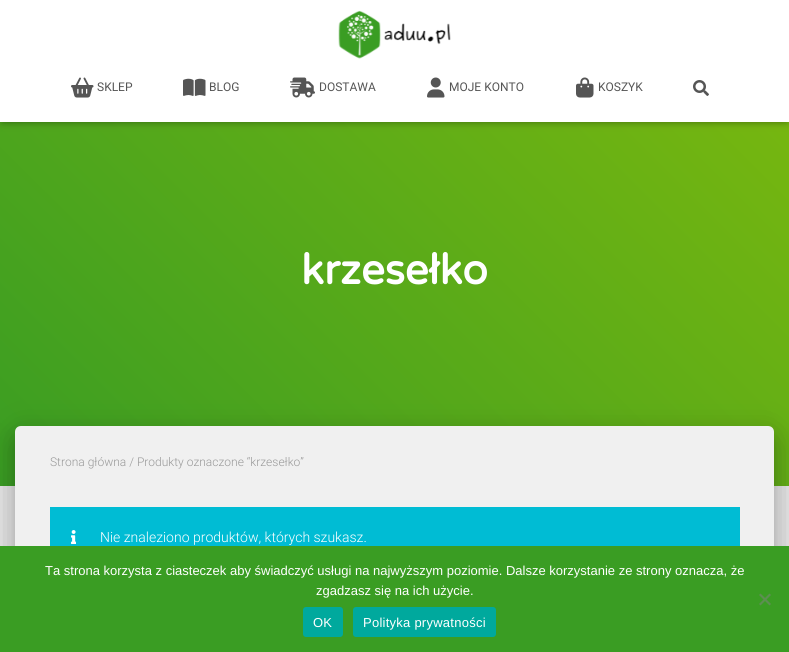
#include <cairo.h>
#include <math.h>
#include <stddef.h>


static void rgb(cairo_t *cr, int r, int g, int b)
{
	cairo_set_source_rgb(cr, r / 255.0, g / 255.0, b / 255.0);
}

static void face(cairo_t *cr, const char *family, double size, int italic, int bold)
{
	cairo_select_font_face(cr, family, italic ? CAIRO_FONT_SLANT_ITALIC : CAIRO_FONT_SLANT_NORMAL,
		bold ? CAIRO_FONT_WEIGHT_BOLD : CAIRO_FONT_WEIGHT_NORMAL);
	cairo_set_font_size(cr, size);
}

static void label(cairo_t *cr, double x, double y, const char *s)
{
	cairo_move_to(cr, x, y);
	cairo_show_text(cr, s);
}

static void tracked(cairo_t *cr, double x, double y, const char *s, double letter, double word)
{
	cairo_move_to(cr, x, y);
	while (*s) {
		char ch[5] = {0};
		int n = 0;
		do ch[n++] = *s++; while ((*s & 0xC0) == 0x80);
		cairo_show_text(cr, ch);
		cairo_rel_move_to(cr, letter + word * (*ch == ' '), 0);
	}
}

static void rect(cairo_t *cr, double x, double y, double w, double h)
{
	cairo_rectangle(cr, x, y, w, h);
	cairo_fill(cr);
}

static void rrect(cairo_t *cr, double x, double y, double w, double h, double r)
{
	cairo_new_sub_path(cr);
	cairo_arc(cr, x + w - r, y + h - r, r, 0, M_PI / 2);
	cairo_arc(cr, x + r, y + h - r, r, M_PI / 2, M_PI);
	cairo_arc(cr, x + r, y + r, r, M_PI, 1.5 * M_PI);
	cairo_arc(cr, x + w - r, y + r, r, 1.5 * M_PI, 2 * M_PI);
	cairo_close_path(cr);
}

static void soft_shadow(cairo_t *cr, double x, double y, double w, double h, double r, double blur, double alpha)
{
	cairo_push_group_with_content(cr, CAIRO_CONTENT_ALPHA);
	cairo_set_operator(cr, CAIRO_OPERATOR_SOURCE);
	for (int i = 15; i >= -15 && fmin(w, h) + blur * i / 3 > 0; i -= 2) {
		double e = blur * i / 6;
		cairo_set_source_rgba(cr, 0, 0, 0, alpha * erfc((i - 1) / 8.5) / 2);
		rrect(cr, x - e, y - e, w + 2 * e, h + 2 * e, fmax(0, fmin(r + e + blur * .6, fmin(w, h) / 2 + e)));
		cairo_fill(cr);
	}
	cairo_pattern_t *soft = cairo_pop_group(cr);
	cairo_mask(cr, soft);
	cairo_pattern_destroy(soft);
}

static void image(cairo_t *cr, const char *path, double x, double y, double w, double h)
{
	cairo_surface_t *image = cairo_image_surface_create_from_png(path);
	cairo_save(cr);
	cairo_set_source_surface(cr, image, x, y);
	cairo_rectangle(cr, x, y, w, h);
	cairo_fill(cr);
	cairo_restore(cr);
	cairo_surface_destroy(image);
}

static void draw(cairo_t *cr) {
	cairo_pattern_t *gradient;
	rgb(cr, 229, 229, 229);
	cairo_paint(cr);
	gradient = cairo_pattern_create_linear(76, 562, 713, -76);
	cairo_pattern_add_color_stop_rgba(gradient, 0, 0.227, 0.616, 0.137, 1);
	cairo_pattern_add_color_stop_rgba(gradient, 1, 0.486, 0.725, 0.055, 1);
	cairo_set_source(cr, gradient);
	cairo_pattern_destroy(gradient);
	rect(cr, 0, 122, 789, 364);
	rgb(cr, 0, 0, 0);
	soft_shadow(cr, 2, 6, 785, 118, 0, 2.5, 0.1);
	soft_shadow(cr, 0, 1, 789, 122, 0, 5, 0.12);
	soft_shadow(cr, 6, 7, 777, 110, 0, 5, 0.42);
	rgb(cr, 255, 255, 255);
	rect(cr, 0, 0, 789, 122);
	image(cr, "image0.png", 338, 10, 113, 49);
	image(cr, "image1.png", 71, 77, 23, 21);
	face(cr, "Roboto", 12, 0, 0);
	rgb(cr, 85, 85, 85);
	label(cr, 97, 91, "SKLEP");
	image(cr, "image2.png", 183, 78, 23, 18);
	label(cr, 209, 91, "BLOG");
	image(cr, "image3.png", 290, 77, 25, 21);
	label(cr, 319, 91, "DOSTAWA");
	image(cr, "image4.png", 427, 77, 18, 21);
	label(cr, 449, 91, "MOJE KONTO");
	image(cr, "image5.png", 576, 77, 18, 21);
	label(cr, 598, 91, "KOSZYK");
	image(cr, "image6.png", 693, 80, 16, 16);
	face(cr, "Varela Round", 42, 0, 1);
	rgb(cr, 255, 255, 255);
	label(cr, 301, 284, "krzesełko");
	rgb(cr, 0, 0, 0);
	soft_shadow(cr, 20, 439, 749, 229, 1, 5, 0.2);
	soft_shadow(cr, 10, 427, 769, 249, 11, 15, 0.12);
	soft_shadow(cr, 13, 440, 763, 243, 8, 12, 0.14);
	rgb(cr, 240, 240, 240);
	cairo_new_path(cr);
	cairo_move_to(cr, 21, 426);
	cairo_line_to(cr, 768, 426);
	cairo_curve_to(cr, 771.5, 426, 774, 428.5, 774, 432);
	cairo_line_to(cr, 774, 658);
	cairo_line_to(cr, 15, 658);
	cairo_line_to(cr, 15, 432);
	cairo_curve_to(cr, 15, 428.5, 17.5, 426, 21, 426);
	cairo_close_path(cr);
	cairo_fill(cr);
	face(cr, "Roboto Light", 12, 0, 0);
	rgb(cr, 153, 153, 153);
	label(cr, 50, 466, "Strona główna / Produkty oznaczone “krzesełko”");
	rgb(cr, 0, 188, 212);
	rect(cr, 50, 507, 690, 39);
	image(cr, "image7.png", 71, 530, 5, 14);
	face(cr, "Roboto Light", 14, 0, 0);
	rgb(cr, 255, 255, 255);
	label(cr, 100, 542, "Nie znaleziono produktów, których szukasz.");
	rgb(cr, 58, 157, 35);
	rect(cr, 0, 546, 789, 106);
	face(cr, "Liberation Sans", 13, 0, 0);
	rgb(cr, 255, 255, 255);
	label(cr, 45, 575, "Ta strona korzysta z ciasteczek aby świadczyć usługi na najwyższym poziomie. Dalsze korzystanie ze strony oznacza, że");
	label(cr, 316, 595, "zgadzasz się na ich użycie.");
	rgb(cr, 93, 143, 82);
	cairo_new_path(cr);
	cairo_move_to(cr, 769.5, 593.5);
	cairo_line_to(cr, 771, 595);
	cairo_line_to(cr, 760.5, 605.5);
	cairo_line_to(cr, 759, 604);
	cairo_close_path(cr);
	cairo_fill(cr);
	cairo_new_path(cr);
	cairo_move_to(cr, 759, 595);
	cairo_line_to(cr, 760.5, 593.5);
	cairo_line_to(cr, 771, 604);
	cairo_line_to(cr, 769.5, 605.5);
	cairo_close_path(cr);
	cairo_fill(cr);
	rgb(cr, 0, 169, 157);
	rrect(cr, 303, 607, 40, 30, 3);
	cairo_fill(cr);
	rgb(cr, 255, 255, 255);
	tracked(cr, 313, 627, "OK", 0.25, 0);
	rgb(cr, 0, 169, 157);
	rrect(cr, 353, 607, 143, 30, 3);
	cairo_fill(cr);
	rgb(cr, 255, 255, 255);
	tracked(cr, 363, 627, "Polityka prywatności", 0.25, 0);
}

int main(void) {
	cairo_surface_t *surface = cairo_image_surface_create(CAIRO_FORMAT_RGB24, 789, 652);
	cairo_t *cr = cairo_create(surface);
	cairo_font_options_t *options = cairo_font_options_create();
	cairo_font_options_set_hint_metrics(options, CAIRO_HINT_METRICS_OFF);
	cairo_font_options_set_hint_style(options, CAIRO_HINT_STYLE_NONE);
	cairo_set_font_options(cr, options);
	cairo_set_miter_limit(cr, 4);
	draw(cr);
	cairo_surface_write_to_png(surface, "render.png");
	cairo_font_options_destroy(options);
	cairo_destroy(cr);
	cairo_surface_destroy(surface);
	return 0;
}
